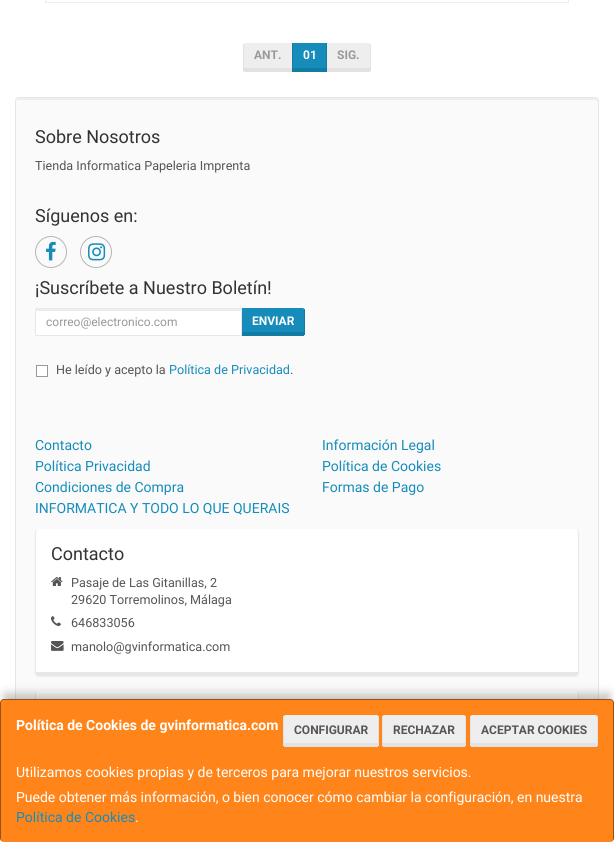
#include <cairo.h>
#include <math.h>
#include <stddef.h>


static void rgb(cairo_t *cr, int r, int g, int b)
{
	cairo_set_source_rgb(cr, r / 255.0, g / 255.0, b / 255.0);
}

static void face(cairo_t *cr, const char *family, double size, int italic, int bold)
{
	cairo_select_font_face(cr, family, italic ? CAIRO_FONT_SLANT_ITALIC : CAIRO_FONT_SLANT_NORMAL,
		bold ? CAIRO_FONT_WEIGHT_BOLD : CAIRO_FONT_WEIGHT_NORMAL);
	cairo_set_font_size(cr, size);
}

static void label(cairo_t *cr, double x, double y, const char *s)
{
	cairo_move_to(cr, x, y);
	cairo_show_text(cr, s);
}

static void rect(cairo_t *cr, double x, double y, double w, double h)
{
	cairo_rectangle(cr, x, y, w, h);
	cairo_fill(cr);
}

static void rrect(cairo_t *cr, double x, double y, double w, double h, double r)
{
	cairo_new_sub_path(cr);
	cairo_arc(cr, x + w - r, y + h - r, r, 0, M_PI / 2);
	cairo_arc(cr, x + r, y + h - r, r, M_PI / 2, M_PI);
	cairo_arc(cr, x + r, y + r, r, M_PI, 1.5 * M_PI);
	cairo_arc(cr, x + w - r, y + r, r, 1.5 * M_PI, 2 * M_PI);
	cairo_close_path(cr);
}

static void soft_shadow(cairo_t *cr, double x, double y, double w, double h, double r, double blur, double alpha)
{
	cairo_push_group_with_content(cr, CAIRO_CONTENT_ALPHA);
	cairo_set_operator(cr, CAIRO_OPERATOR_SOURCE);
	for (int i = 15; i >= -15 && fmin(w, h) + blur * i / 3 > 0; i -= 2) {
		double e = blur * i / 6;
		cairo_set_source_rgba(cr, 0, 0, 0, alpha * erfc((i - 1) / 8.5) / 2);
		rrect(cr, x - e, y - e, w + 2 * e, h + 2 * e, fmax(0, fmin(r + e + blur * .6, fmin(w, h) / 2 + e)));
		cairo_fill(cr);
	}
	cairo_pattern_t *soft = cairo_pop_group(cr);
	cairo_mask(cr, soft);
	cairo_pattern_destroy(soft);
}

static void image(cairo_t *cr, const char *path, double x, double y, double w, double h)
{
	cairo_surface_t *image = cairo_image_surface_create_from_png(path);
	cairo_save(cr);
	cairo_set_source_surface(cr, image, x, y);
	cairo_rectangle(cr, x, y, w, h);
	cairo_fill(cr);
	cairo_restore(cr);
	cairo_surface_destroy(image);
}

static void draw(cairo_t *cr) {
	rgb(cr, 255, 255, 255);
	cairo_paint(cr);
	cairo_rectangle(cr, 45.5, -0.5, 523, 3);
	rgb(cr, 238, 238, 238);
	cairo_set_line_width(cr, 1);
	cairo_stroke(cr);
	cairo_new_path(cr);
	cairo_move_to(cr, 245, 43);
	cairo_line_to(cr, 292, 43);
	cairo_line_to(cr, 292, 68);
	cairo_line_to(cr, 244, 68);
	cairo_line_to(cr, 244, 44);
	cairo_close_path(cr);
	cairo_fill(cr);
	rgb(cr, 226, 226, 226);
	rect(cr, 244, 68, 49, 4);
	rect(cr, 243, 44, 1, 27);
	face(cr, "Roboto", 12, 0, 1);
	rgb(cr, 153, 153, 153);
	label(cr, 254, 59, "ANT.");
	rgb(cr, 21, 140, 186);
	rect(cr, 293, 43, 33, 25);
	rgb(cr, 226, 226, 226);
	rect(cr, 326, 68, 44, 4);
	rgb(cr, 18, 123, 163);
	rect(cr, 326, 43, 1, 29);
	rect(cr, 292, 68, 35, 4);
	rect(cr, 292, 43, 1, 29);
	rgb(cr, 255, 255, 255);
	label(cr, 303, 59, "01");
	rgb(cr, 238, 238, 238);
	cairo_new_path(cr);
	cairo_move_to(cr, 327, 43);
	cairo_line_to(cr, 369, 43);
	cairo_curve_to(cr, 370, 43, 370, 44, 370, 45);
	cairo_line_to(cr, 370, 68);
	cairo_line_to(cr, 327, 68);
	cairo_close_path(cr);
	cairo_fill(cr);
	rgb(cr, 226, 226, 226);
	rect(cr, 370, 44, 1, 27);
	rgb(cr, 153, 153, 153);
	label(cr, 337, 59, "SIG.");
	rgb(cr, 250, 250, 250);
	rrect(cr, 15, 97, 584, 697, 4);
	cairo_fill(cr);
	rgb(cr, 238, 238, 238);
	cairo_new_path(cr);
	cairo_move_to(cr, 19, 100);
	cairo_line_to(cr, 595, 100);
	cairo_curve_to(cr, 597, 100, 598, 101, 598, 103);
	cairo_curve_to(cr, 598, 101, 598, 98, 595, 98);
	cairo_line_to(cr, 19, 98);
	cairo_line_to(cr, 17, 99);
	cairo_line_to(cr, 16, 103);
	cairo_curve_to(cr, 16, 101, 17, 100, 19, 100);
	cairo_close_path(cr);
	cairo_fill(cr);
	rrect(cr, 15.5, 97.5, 583, 696, 3.5);
	rgb(cr, 231, 231, 231);
	cairo_stroke(cr);
	face(cr, "Roboto", 18, 0, 0);
	rgb(cr, 51, 51, 51);
	label(cr, 35, 143, "Sobre Nosotros");
	face(cr, "Roboto", 12.6, 0, 0);
	rgb(cr, 85, 85, 85);
	label(cr, 35, 170, "Tienda Informatica Papeleria Imprenta");
	face(cr, "Roboto", 18, 0, 0);
	rgb(cr, 51, 51, 51);
	label(cr, 35, 222, "Síguenos en:");
	cairo_new_path(cr);
	cairo_arc(cr, 51, 252, 15.5, 0, 2 * M_PI);
	rgb(cr, 181, 181, 181);
	cairo_stroke(cr);
	image(cr, "image0.png", 46, 241, 10, 20);
	cairo_arc(cr, 96, 252, 15.5, 0, 2 * M_PI);
	cairo_stroke(cr);
	image(cr, "image1.png", 88, 243, 18, 18);
	rgb(cr, 51, 51, 51);
	label(cr, 35, 294, "¡Suscríbete a Nuestro Boletín!");
	rgb(cr, 18, 123, 163);
	rect(cr, 241, 332, 63, 4);
	rgb(cr, 255, 255, 255);
	cairo_new_path(cr);
	cairo_move_to(cr, 37, 308);
	cairo_line_to(cr, 242, 308);
	cairo_line_to(cr, 242, 336);
	cairo_line_to(cr, 37, 336);
	cairo_curve_to(cr, 36, 336, 35, 335, 35, 334);
	cairo_line_to(cr, 35, 310);
	cairo_curve_to(cr, 35, 309, 36, 308, 37, 308);
	cairo_close_path(cr);
	cairo_fill(cr);
	rgb(cr, 236, 236, 236);
	cairo_new_path(cr);
	cairo_move_to(cr, 37, 311);
	cairo_line_to(cr, 241, 311);
	cairo_line_to(cr, 241, 309);
	cairo_line_to(cr, 37, 309);
	cairo_curve_to(cr, 36, 309, 36, 311, 36, 312);
	cairo_curve_to(cr, 36, 311, 36, 311, 37, 311);
	cairo_close_path(cr);
	cairo_fill(cr);
	cairo_new_path(cr);
	cairo_move_to(cr, 37, 308.5);
	cairo_line_to(cr, 241.5, 308.5);
	cairo_line_to(cr, 241.5, 335.5);
	cairo_line_to(cr, 37, 335.5);
	cairo_curve_to(cr, 36, 335.5, 35.5, 335, 35.5, 334);
	cairo_line_to(cr, 35.5, 310);
	cairo_curve_to(cr, 35.5, 309, 36, 308.5, 37, 308.5);
	cairo_close_path(cr);
	rgb(cr, 231, 231, 231);
	cairo_stroke(cr);
	face(cr, "Roboto", 12, 0, 0);
	rgb(cr, 153, 153, 153);
	label(cr, 46, 326, "correo@electronico.com");
	rgb(cr, 21, 140, 186);
	cairo_new_path(cr);
	cairo_move_to(cr, 242, 308);
	cairo_line_to(cr, 303, 308);
	cairo_curve_to(cr, 304, 308, 304, 309, 304, 310);
	cairo_line_to(cr, 304, 332);
	cairo_line_to(cr, 242, 332);
	cairo_close_path(cr);
	cairo_fill(cr);
	rgb(cr, 18, 123, 163);
	rect(cr, 304, 309, 1, 26);
	face(cr, "Roboto", 12, 0, 1);
	rgb(cr, 255, 255, 255);
	label(cr, 252, 325, "ENVIAR");
	cairo_rectangle(cr, 36.5, 365.5, 11, 11);
	cairo_fill_preserve(cr);
	rgb(cr, 153, 153, 153);
	cairo_stroke(cr);
	face(cr, "Roboto", 12.6, 0, 0);
	rgb(cr, 85, 85, 85);
	label(cr, 56, 374, "He leído y acepto la");
	rgb(cr, 21, 140, 186);
	label(cr, 169, 374, "Política de Privacidad");
	rgb(cr, 85, 85, 85);
	label(cr, 290, 374, ".");
	face(cr, "Roboto", 14, 0, 0);
	rgb(cr, 21, 140, 186);
	label(cr, 35, 450, "Contacto");
	label(cr, 322, 450, "Información Legal");
	label(cr, 35, 471, "Política Privacidad");
	label(cr, 322, 471, "Política de Cookies");
	label(cr, 35, 492, "Condiciones de Compra");
	label(cr, 322, 492, "Formas de Pago");
	label(cr, 35, 513, "INFORMATICA Y TODO LO QUE QUERAIS");
	rgb(cr, 0, 0, 0);
	soft_shadow(cr, 35, 530, 544, 147, 4, 0.5, 0.05);
	rgb(cr, 255, 255, 255);
	cairo_new_path(cr);
	cairo_move_to(cr, 39, 529);
	cairo_line_to(cr, 575, 529);
	cairo_curve_to(cr, 577, 529, 578, 531, 578, 533);
	cairo_line_to(cr, 578, 672);
	cairo_line_to(cr, 36, 672);
	cairo_line_to(cr, 36, 533);
	cairo_curve_to(cr, 36, 531, 37, 529, 39, 529);
	cairo_close_path(cr);
	cairo_fill(cr);
	rgb(cr, 231, 231, 231);
	cairo_set_fill_rule(cr, CAIRO_FILL_RULE_EVEN_ODD);
	cairo_new_path(cr);
	cairo_move_to(cr, 39, 529);
	cairo_line_to(cr, 575, 529);
	cairo_curve_to(cr, 577, 529, 579, 531, 579, 533);
	cairo_line_to(cr, 579, 672);
	cairo_curve_to(cr, 579, 674, 577, 676, 575, 676);
	cairo_line_to(cr, 39, 676);
	cairo_curve_to(cr, 37, 676, 35, 674, 35, 672);
	cairo_line_to(cr, 35, 533);
	cairo_curve_to(cr, 35, 531, 37, 529, 39, 529);
	cairo_close_path(cr);
	cairo_move_to(cr, 39, 529);
	cairo_line_to(cr, 575, 529);
	cairo_curve_to(cr, 577, 529, 578, 531, 578, 533);
	cairo_line_to(cr, 578, 672);
	cairo_line_to(cr, 36, 672);
	cairo_line_to(cr, 36, 533);
	cairo_curve_to(cr, 36, 531, 37, 529, 39, 529);
	cairo_close_path(cr);
	cairo_fill(cr);
	face(cr, "Roboto", 18, 0, 0);
	rgb(cr, 51, 51, 51);
	label(cr, 51, 560, "Contacto");
	image(cr, "image2.png", 51, 577, 12, 9);
	face(cr, "Roboto", 12.6, 0, 0);
	rgb(cr, 85, 85, 85);
	label(cr, 71, 587, "Pasaje de Las Gitanillas, 2");
	label(cr, 71, 604, "29620 Torremolinos, Málaga");
	image(cr, "image3.png", 51, 616, 10, 10);
	label(cr, 71, 627, "646833056");
	image(cr, "image4.png", 51, 641, 13, 10);
	label(cr, 71, 651, "manolo@gvinformatica.com");
	rgb(cr, 255, 255, 255);
	cairo_set_fill_rule(cr, CAIRO_FILL_RULE_WINDING);
	cairo_new_path(cr);
	cairo_move_to(cr, 39, 691);
	cairo_line_to(cr, 575, 691);
	cairo_curve_to(cr, 577, 691, 578, 693, 578, 695);
	cairo_line_to(cr, 578, 770);
	cairo_line_to(cr, 36, 770);
	cairo_line_to(cr, 36, 695);
	cairo_curve_to(cr, 36, 693, 37, 691, 39, 691);
	cairo_close_path(cr);
	cairo_fill(cr);
	rgb(cr, 231, 231, 231);
	cairo_set_fill_rule(cr, CAIRO_FILL_RULE_EVEN_ODD);
	cairo_new_path(cr);
	cairo_move_to(cr, 39, 691);
	cairo_line_to(cr, 575, 691);
	cairo_curve_to(cr, 577, 691, 579, 693, 579, 695);
	cairo_line_to(cr, 579, 770);
	cairo_curve_to(cr, 579, 772, 577, 774, 575, 774);
	cairo_line_to(cr, 39, 774);
	cairo_curve_to(cr, 37, 774, 35, 772, 35, 770);
	cairo_line_to(cr, 35, 695);
	cairo_curve_to(cr, 35, 693, 37, 691, 39, 691);
	cairo_close_path(cr);
	cairo_move_to(cr, 39, 691);
	cairo_line_to(cr, 575, 691);
	cairo_curve_to(cr, 577, 691, 578, 693, 578, 695);
	cairo_line_to(cr, 578, 770);
	cairo_line_to(cr, 36, 770);
	cairo_line_to(cr, 36, 695);
	cairo_curve_to(cr, 36, 693, 37, 691, 39, 691);
	cairo_close_path(cr);
	cairo_fill(cr);
	rgb(cr, 0, 0, 0);
	soft_shadow(cr, 5, 694, 604, 133, 0, 5, 0.25);
	rgb(cr, 255, 133, 27);
	rrect(cr, 0, 699, 614, 143, 4);
	cairo_fill(cr);
	cairo_set_source_rgba(cr, 0, 0, 0, 0.4);
	cairo_new_path(cr);
	cairo_move_to(cr, 4, 699);
	cairo_line_to(cr, 610, 699);
	cairo_curve_to(cr, 612, 699, 614, 701, 614, 703);
	cairo_line_to(cr, 614, 838);
	cairo_curve_to(cr, 614, 840, 612, 842, 610, 842);
	cairo_line_to(cr, 4, 842);
	cairo_curve_to(cr, 2, 842, 0, 840, 0, 838);
	cairo_line_to(cr, 0, 703);
	cairo_curve_to(cr, 0, 701, 2, 699, 4, 699);
	cairo_close_path(cr);
	cairo_move_to(cr, 4, 700);
	cairo_line_to(cr, 610, 700);
	cairo_curve_to(cr, 612, 700, 613, 701, 613, 703);
	cairo_line_to(cr, 613, 838);
	cairo_curve_to(cr, 613, 840, 612, 842, 610, 842);
	cairo_line_to(cr, 4, 842);
	cairo_curve_to(cr, 2, 842, 1, 840, 1, 838);
	cairo_line_to(cr, 1, 703);
	cairo_curve_to(cr, 1, 701, 2, 700, 4, 700);
	cairo_close_path(cr);
	cairo_fill(cr);
	face(cr, "Roboto", 14, 0, 1);
	rgb(cr, 255, 255, 255);
	label(cr, 16, 730, "Política de Cookies de gvinformatica.com");
	rgb(cr, 238, 238, 238);
	cairo_set_fill_rule(cr, CAIRO_FILL_RULE_WINDING);
	cairo_new_path(cr);
	cairo_move_to(cr, 285, 715);
	cairo_line_to(cr, 377, 715);
	cairo_curve_to(cr, 378, 715, 378, 716, 378, 717);
	cairo_line_to(cr, 378, 743);
	cairo_line_to(cr, 284, 743);
	cairo_line_to(cr, 284, 717);
	cairo_curve_to(cr, 284, 716, 284, 715, 285, 715);
	cairo_close_path(cr);
	cairo_fill(cr);
	rgb(cr, 226, 226, 226);
	rect(cr, 378, 716, 1, 30);
	rect(cr, 284, 743, 94, 4);
	rect(cr, 283, 716, 1, 30);
	face(cr, "Roboto", 12, 0, 1);
	rgb(cr, 85, 85, 85);
	label(cr, 294, 734, "CONFIGURAR");
	rgb(cr, 238, 238, 238);
	cairo_new_path(cr);
	cairo_move_to(cr, 384, 715);
	cairo_line_to(cr, 464, 715);
	cairo_curve_to(cr, 465, 715, 465, 716, 465, 717);
	cairo_line_to(cr, 465, 743);
	cairo_line_to(cr, 383, 743);
	cairo_line_to(cr, 383, 717);
	cairo_curve_to(cr, 383, 716, 383, 715, 384, 715);
	cairo_close_path(cr);
	cairo_fill(cr);
	rgb(cr, 226, 226, 226);
	rect(cr, 465, 716, 1, 30);
	rect(cr, 383, 743, 82, 4);
	rect(cr, 382, 716, 1, 30);
	rgb(cr, 85, 85, 85);
	label(cr, 393, 734, "RECHAZAR");
	rgb(cr, 238, 238, 238);
	cairo_new_path(cr);
	cairo_move_to(cr, 472, 715);
	cairo_line_to(cr, 596, 715);
	cairo_curve_to(cr, 597, 715, 597, 716, 597, 717);
	cairo_line_to(cr, 597, 743);
	cairo_line_to(cr, 471, 743);
	cairo_line_to(cr, 471, 717);
	cairo_curve_to(cr, 471, 716, 471, 715, 472, 715);
	cairo_close_path(cr);
	cairo_fill(cr);
	rgb(cr, 226, 226, 226);
	rect(cr, 597, 716, 1, 30);
	rect(cr, 471, 743, 126, 4);
	rect(cr, 470, 716, 1, 30);
	rgb(cr, 85, 85, 85);
	label(cr, 481, 734, "ACEPTAR COOKIES");
	face(cr, "Roboto", 14, 0, 0);
	rgb(cr, 255, 255, 255);
	label(cr, 16, 777, "Utilizamos cookies propias y de terceros para mejorar nuestros servicios.");
	label(cr, 16, 802, "Puede obtener más información, o bien conocer cómo cambiar la configuración, en nuestra");
	rgb(cr, 21, 140, 186);
	label(cr, 16, 822, "Política de Cookies");
	rgb(cr, 255, 255, 255);
	label(cr, 135, 822, ".");
}

int main(void) {
	cairo_surface_t *surface = cairo_image_surface_create(CAIRO_FORMAT_RGB24, 614, 842);
	cairo_t *cr = cairo_create(surface);
	cairo_font_options_t *options = cairo_font_options_create();
	cairo_font_options_set_hint_metrics(options, CAIRO_HINT_METRICS_OFF);
	cairo_font_options_set_hint_style(options, CAIRO_HINT_STYLE_NONE);
	cairo_set_font_options(cr, options);
	cairo_set_miter_limit(cr, 4);
	draw(cr);
	cairo_surface_write_to_png(surface, "render.png");
	cairo_font_options_destroy(options);
	cairo_destroy(cr);
	cairo_surface_destroy(surface);
	return 0;
}
